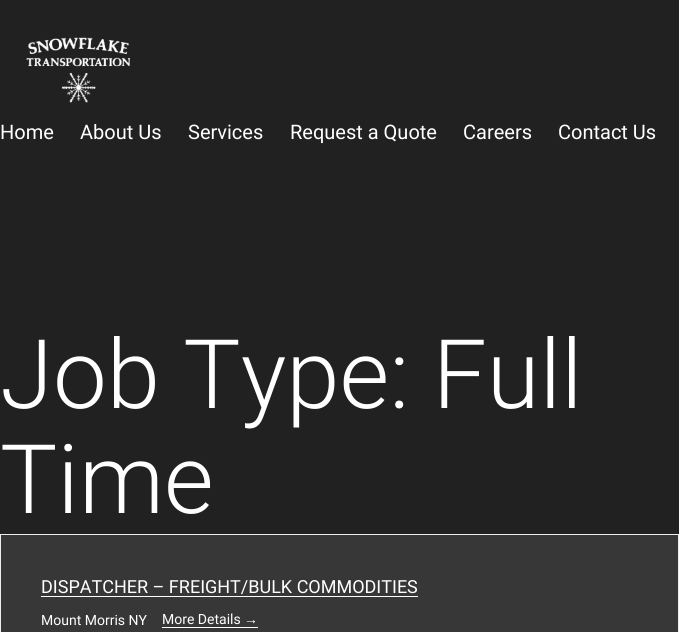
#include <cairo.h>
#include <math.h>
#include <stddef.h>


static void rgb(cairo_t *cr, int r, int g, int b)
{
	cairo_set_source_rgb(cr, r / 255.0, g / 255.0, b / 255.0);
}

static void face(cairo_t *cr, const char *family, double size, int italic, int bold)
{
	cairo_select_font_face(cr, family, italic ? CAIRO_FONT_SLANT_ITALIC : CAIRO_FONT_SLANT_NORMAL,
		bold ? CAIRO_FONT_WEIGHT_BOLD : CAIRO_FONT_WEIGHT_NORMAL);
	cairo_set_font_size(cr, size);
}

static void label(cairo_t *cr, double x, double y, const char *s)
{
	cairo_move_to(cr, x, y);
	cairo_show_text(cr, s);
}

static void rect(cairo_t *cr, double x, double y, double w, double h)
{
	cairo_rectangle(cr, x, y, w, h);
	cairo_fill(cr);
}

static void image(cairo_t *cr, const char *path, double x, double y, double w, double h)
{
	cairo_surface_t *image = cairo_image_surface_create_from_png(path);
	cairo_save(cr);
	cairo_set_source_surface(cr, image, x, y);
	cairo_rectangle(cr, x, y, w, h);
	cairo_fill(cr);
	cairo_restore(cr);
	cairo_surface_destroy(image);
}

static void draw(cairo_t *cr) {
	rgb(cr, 33, 33, 33);
	cairo_paint(cr);
	image(cr, "image0.png", 26, 37, 104, 66);
	face(cr, "Roboto", 20, 0, 0);
	rgb(cr, 255, 255, 255);
	label(cr, 0, 139, "Home");
	label(cr, 80, 139, "About Us");
	label(cr, 188, 139, "Services");
	label(cr, 290, 139, "Request a Quote");
	label(cr, 463, 139, "Careers");
	label(cr, 558, 139, "Contact Us");
	face(cr, "Roboto Light", 96, 0, 0);
	label(cr, 0, 408, "Job Type: Full");
	label(cr, 0, 513, "Time");
	cairo_rectangle(cr, 0.5, 534.5, 678, 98);
	rgb(cr, 237, 237, 237);
	cairo_set_line_width(cr, 1);
	cairo_stroke(cr);
	rgb(cr, 55, 55, 55);
	rect(cr, 1, 535, 677, 97);
	face(cr, "Roboto", 18, 0, 0);
	rgb(cr, 255, 255, 255);
	label(cr, 41, 593, "DISPATCHER – FREIGHT/BULK COMMODITIES");
	rect(cr, 41, 596, 377, 1);
	face(cr, "Roboto", 14, 0, 0);
	label(cr, 41, 625, "Mount Morris NY");
	label(cr, 162, 624, "More Details");
	face(cr, "Liberation Sans", 14, 0, 0);
	label(cr, 244, 624, "→");
	rect(cr, 162, 627, 96, 1);
}

int main(void) {
	cairo_surface_t *surface = cairo_image_surface_create(CAIRO_FORMAT_RGB24, 679, 632);
	cairo_t *cr = cairo_create(surface);
	cairo_font_options_t *options = cairo_font_options_create();
	cairo_font_options_set_hint_metrics(options, CAIRO_HINT_METRICS_OFF);
	cairo_font_options_set_hint_style(options, CAIRO_HINT_STYLE_NONE);
	cairo_set_font_options(cr, options);
	cairo_set_miter_limit(cr, 4);
	draw(cr);
	cairo_surface_write_to_png(surface, "render.png");
	cairo_font_options_destroy(options);
	cairo_destroy(cr);
	cairo_surface_destroy(surface);
	return 0;
}
